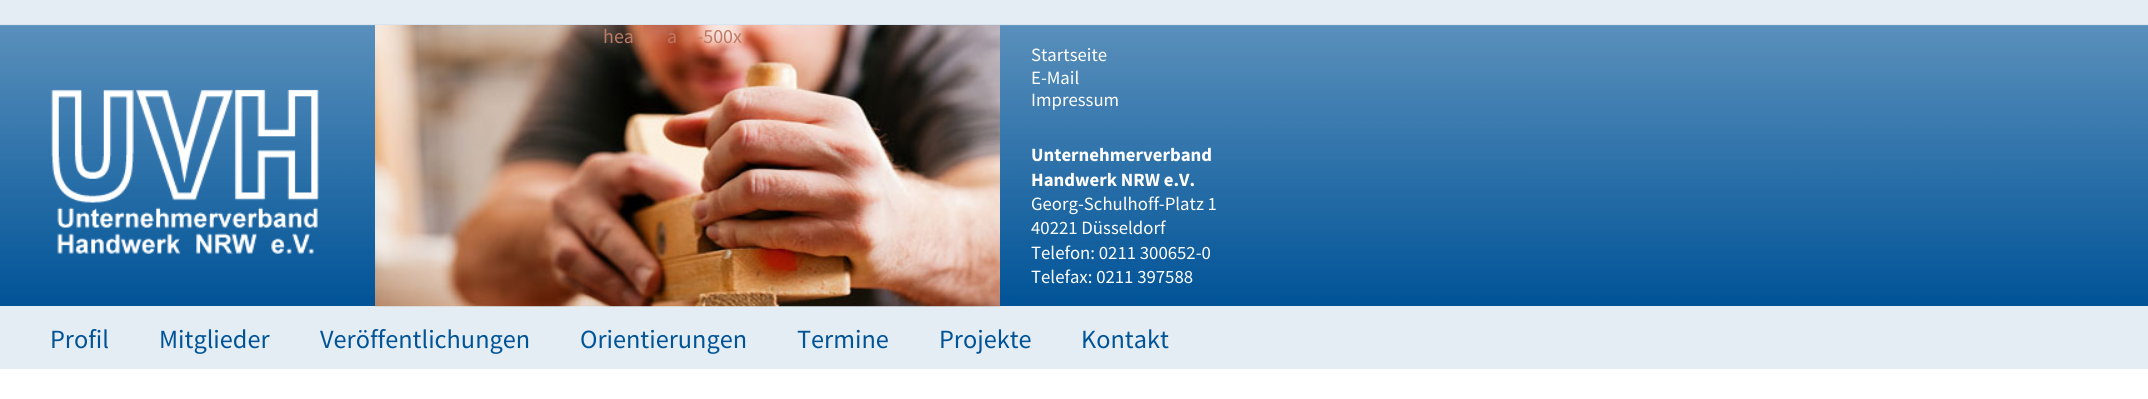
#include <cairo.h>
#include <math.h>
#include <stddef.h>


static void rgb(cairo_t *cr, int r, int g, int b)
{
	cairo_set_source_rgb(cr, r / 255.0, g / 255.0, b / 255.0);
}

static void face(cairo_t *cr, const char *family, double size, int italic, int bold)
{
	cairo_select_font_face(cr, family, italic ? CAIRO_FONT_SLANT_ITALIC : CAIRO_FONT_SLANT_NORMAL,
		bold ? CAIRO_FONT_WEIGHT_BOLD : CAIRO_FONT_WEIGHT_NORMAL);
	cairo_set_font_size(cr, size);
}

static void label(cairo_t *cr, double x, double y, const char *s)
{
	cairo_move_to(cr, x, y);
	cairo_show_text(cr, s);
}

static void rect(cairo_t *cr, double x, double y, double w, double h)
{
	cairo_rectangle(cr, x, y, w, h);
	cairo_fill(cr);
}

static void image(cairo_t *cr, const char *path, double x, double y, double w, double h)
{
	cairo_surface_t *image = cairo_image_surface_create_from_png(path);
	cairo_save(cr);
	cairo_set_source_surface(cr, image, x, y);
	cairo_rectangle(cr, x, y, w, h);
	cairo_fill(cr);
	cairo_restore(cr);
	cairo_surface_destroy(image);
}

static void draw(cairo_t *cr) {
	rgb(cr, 255, 255, 255);
	cairo_paint(cr);
	image(cr, "image0.png", 0, 0, 2148, 306);
	rgb(cr, 228, 237, 244);
	rect(cr, 0, 306, 2148, 63);
	image(cr, "image1.png", 375, 25, 625, 282);
	face(cr, "Source Sans Pro", 20, 0, 0);
	rgb(cr, 189, 122, 100);
	label(cr, 603, 43, "hea");
	label(cr, 667, 43, "a");
	label(cr, 697, 43, "-500x");
	face(cr, "Source Sans Pro", 18.75, 0, 0);
	rgb(cr, 255, 255, 255);
	label(cr, 1031, 61, "Startseite");
	label(cr, 1031, 84, "E-Mail");
	label(cr, 1031, 106, "Impressum");
	image(cr, "image2.png", 51, 89, 268, 165);
	face(cr, "Source Sans Pro", 18.75, 0, 1);
	label(cr, 1031, 161, "Unternehmerverband");
	label(cr, 1031, 186, "Handwerk NRW e.V.");
	face(cr, "Source Sans Pro", 18.75, 0, 0);
	label(cr, 1031, 210, "Georg-Schulhoff-Platz 1");
	label(cr, 1031, 234, "40221 Düsseldorf");
	label(cr, 1031, 259, "Telefon: 0211 300652-0");
	label(cr, 1031, 283, "Telefax: 0211 397588");
	face(cr, "Source Sans Pro", 26.25, 0, 0);
	rgb(cr, 0, 83, 151);
	label(cr, 50, 348, "Profil");
	label(cr, 159, 348, "Mitglieder");
	label(cr, 320, 348, "Veröffentlichungen");
	label(cr, 580, 348, "Orientierungen");
	label(cr, 797, 348, "Termine");
	label(cr, 939, 348, "Projekte");
	label(cr, 1081, 348, "Kontakt");
}

int main(void) {
	cairo_surface_t *surface = cairo_image_surface_create(CAIRO_FORMAT_RGB24, 2148, 399);
	cairo_t *cr = cairo_create(surface);
	cairo_font_options_t *options = cairo_font_options_create();
	cairo_font_options_set_hint_metrics(options, CAIRO_HINT_METRICS_OFF);
	cairo_font_options_set_hint_style(options, CAIRO_HINT_STYLE_NONE);
	cairo_set_font_options(cr, options);
	cairo_set_miter_limit(cr, 4);
	draw(cr);
	cairo_surface_write_to_png(surface, "render.png");
	cairo_font_options_destroy(options);
	cairo_destroy(cr);
	cairo_surface_destroy(surface);
	return 0;
}
